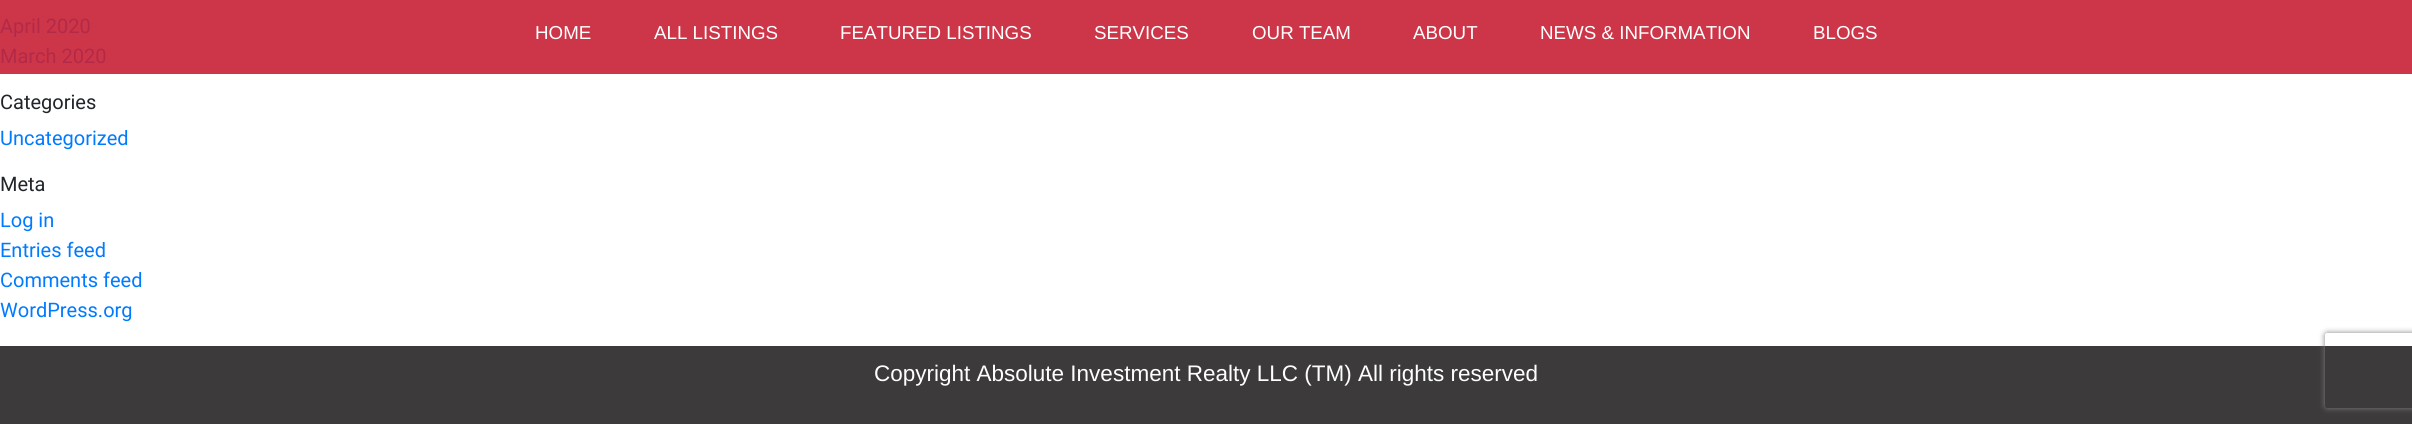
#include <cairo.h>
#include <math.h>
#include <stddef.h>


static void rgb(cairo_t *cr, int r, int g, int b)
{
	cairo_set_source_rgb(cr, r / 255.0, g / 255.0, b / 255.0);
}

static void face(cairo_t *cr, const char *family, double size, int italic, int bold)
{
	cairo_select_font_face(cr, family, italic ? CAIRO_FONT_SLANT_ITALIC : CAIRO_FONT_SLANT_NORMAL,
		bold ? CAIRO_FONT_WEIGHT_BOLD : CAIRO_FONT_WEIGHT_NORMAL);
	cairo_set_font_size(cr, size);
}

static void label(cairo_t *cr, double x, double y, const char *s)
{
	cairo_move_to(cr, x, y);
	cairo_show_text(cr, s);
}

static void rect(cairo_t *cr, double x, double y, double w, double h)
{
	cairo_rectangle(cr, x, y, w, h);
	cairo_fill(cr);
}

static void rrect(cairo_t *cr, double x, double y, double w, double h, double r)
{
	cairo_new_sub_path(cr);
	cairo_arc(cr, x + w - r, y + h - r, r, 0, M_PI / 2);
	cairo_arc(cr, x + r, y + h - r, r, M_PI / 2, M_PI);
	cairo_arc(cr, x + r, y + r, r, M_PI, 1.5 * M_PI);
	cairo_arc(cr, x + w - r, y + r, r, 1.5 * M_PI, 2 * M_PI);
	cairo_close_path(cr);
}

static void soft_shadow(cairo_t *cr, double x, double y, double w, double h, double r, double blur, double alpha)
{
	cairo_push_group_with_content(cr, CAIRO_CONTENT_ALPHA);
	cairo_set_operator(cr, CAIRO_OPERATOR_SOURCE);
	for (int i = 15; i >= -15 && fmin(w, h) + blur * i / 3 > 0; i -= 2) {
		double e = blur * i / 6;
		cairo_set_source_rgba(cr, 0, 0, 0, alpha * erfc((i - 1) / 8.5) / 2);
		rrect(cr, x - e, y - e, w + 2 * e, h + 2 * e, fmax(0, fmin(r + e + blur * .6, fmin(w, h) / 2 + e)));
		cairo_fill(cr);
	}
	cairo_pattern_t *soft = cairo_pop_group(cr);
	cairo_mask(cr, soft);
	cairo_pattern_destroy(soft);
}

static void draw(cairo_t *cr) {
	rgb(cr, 255, 255, 255);
	cairo_paint(cr);
	rgb(cr, 205, 54, 72);
	rect(cr, 0, 0, 2412, 74);
	face(cr, "Roboto", 20, 0, 0);
	rgb(cr, 179, 41, 72);
	label(cr, 0, 33, "April 2020");
	label(cr, 0, 63, "March 2020");
	rgb(cr, 33, 37, 41);
	label(cr, 0, 109, "Categories");
	rgb(cr, 0, 123, 255);
	label(cr, 0, 145, "Uncategorized");
	rgb(cr, 33, 37, 41);
	label(cr, 0, 191, "Meta");
	rgb(cr, 0, 123, 255);
	label(cr, 0, 227, "Log in");
	label(cr, 0, 257, "Entries feed");
	label(cr, 0, 287, "Comments feed");
	label(cr, 0, 317, "WordPress.org");
	face(cr, "Liberation Sans", 18.75, 0, 0);
	rgb(cr, 255, 255, 255);
	label(cr, 535, 39, "HOME");
	label(cr, 654, 39, "ALL LISTINGS");
	label(cr, 840, 39, "FEATURED LISTINGS");
	label(cr, 1094, 39, "SERVICES");
	label(cr, 1252, 39, "OUR TEAM");
	label(cr, 1413, 39, "ABOUT");
	label(cr, 1540, 39, "NEWS & INFORMATION");
	label(cr, 1813, 39, "BLOGS");
	rgb(cr, 60, 58, 58);
	rect(cr, 0, 346, 2412, 78);
	face(cr, "Liberation Sans", 22.5, 0, 0);
	rgb(cr, 255, 255, 255);
	label(cr, 874, 381, "Copyright Absolute Investment Realty LLC (TM) All rights reserved");
	cairo_save(cr);
	cairo_set_fill_rule(cr, CAIRO_FILL_RULE_EVEN_ODD);
	cairo_new_path(cr);
	cairo_move_to(cr, 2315, 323);
	cairo_line_to(cr, 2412, 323);
	cairo_line_to(cr, 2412, 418);
	cairo_line_to(cr, 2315, 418);
	cairo_close_path(cr);
	cairo_move_to(cr, 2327.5, 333);
	cairo_line_to(cr, 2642.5, 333);
	cairo_curve_to(cr, 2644, 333, 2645, 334, 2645, 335.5);
	cairo_line_to(cr, 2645, 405.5);
	cairo_curve_to(cr, 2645, 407, 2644, 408, 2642.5, 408);
	cairo_line_to(cr, 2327.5, 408);
	cairo_curve_to(cr, 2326, 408, 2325, 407, 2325, 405.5);
	cairo_line_to(cr, 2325, 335.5);
	cairo_curve_to(cr, 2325, 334, 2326, 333, 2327.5, 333);
	cairo_close_path(cr);
	cairo_clip(cr);
	rgb(cr, 128, 128, 128);
	soft_shadow(cr, 2325, 333, 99, 75, 2.5, 3, 1);
	cairo_restore(cr);
}

int main(void) {
	cairo_surface_t *surface = cairo_image_surface_create(CAIRO_FORMAT_RGB24, 2412, 424);
	cairo_t *cr = cairo_create(surface);
	cairo_font_options_t *options = cairo_font_options_create();
	cairo_font_options_set_hint_metrics(options, CAIRO_HINT_METRICS_OFF);
	cairo_font_options_set_hint_style(options, CAIRO_HINT_STYLE_NONE);
	cairo_set_font_options(cr, options);
	cairo_set_miter_limit(cr, 4);
	draw(cr);
	cairo_surface_write_to_png(surface, "render.png");
	cairo_font_options_destroy(options);
	cairo_destroy(cr);
	cairo_surface_destroy(surface);
	return 0;
}
